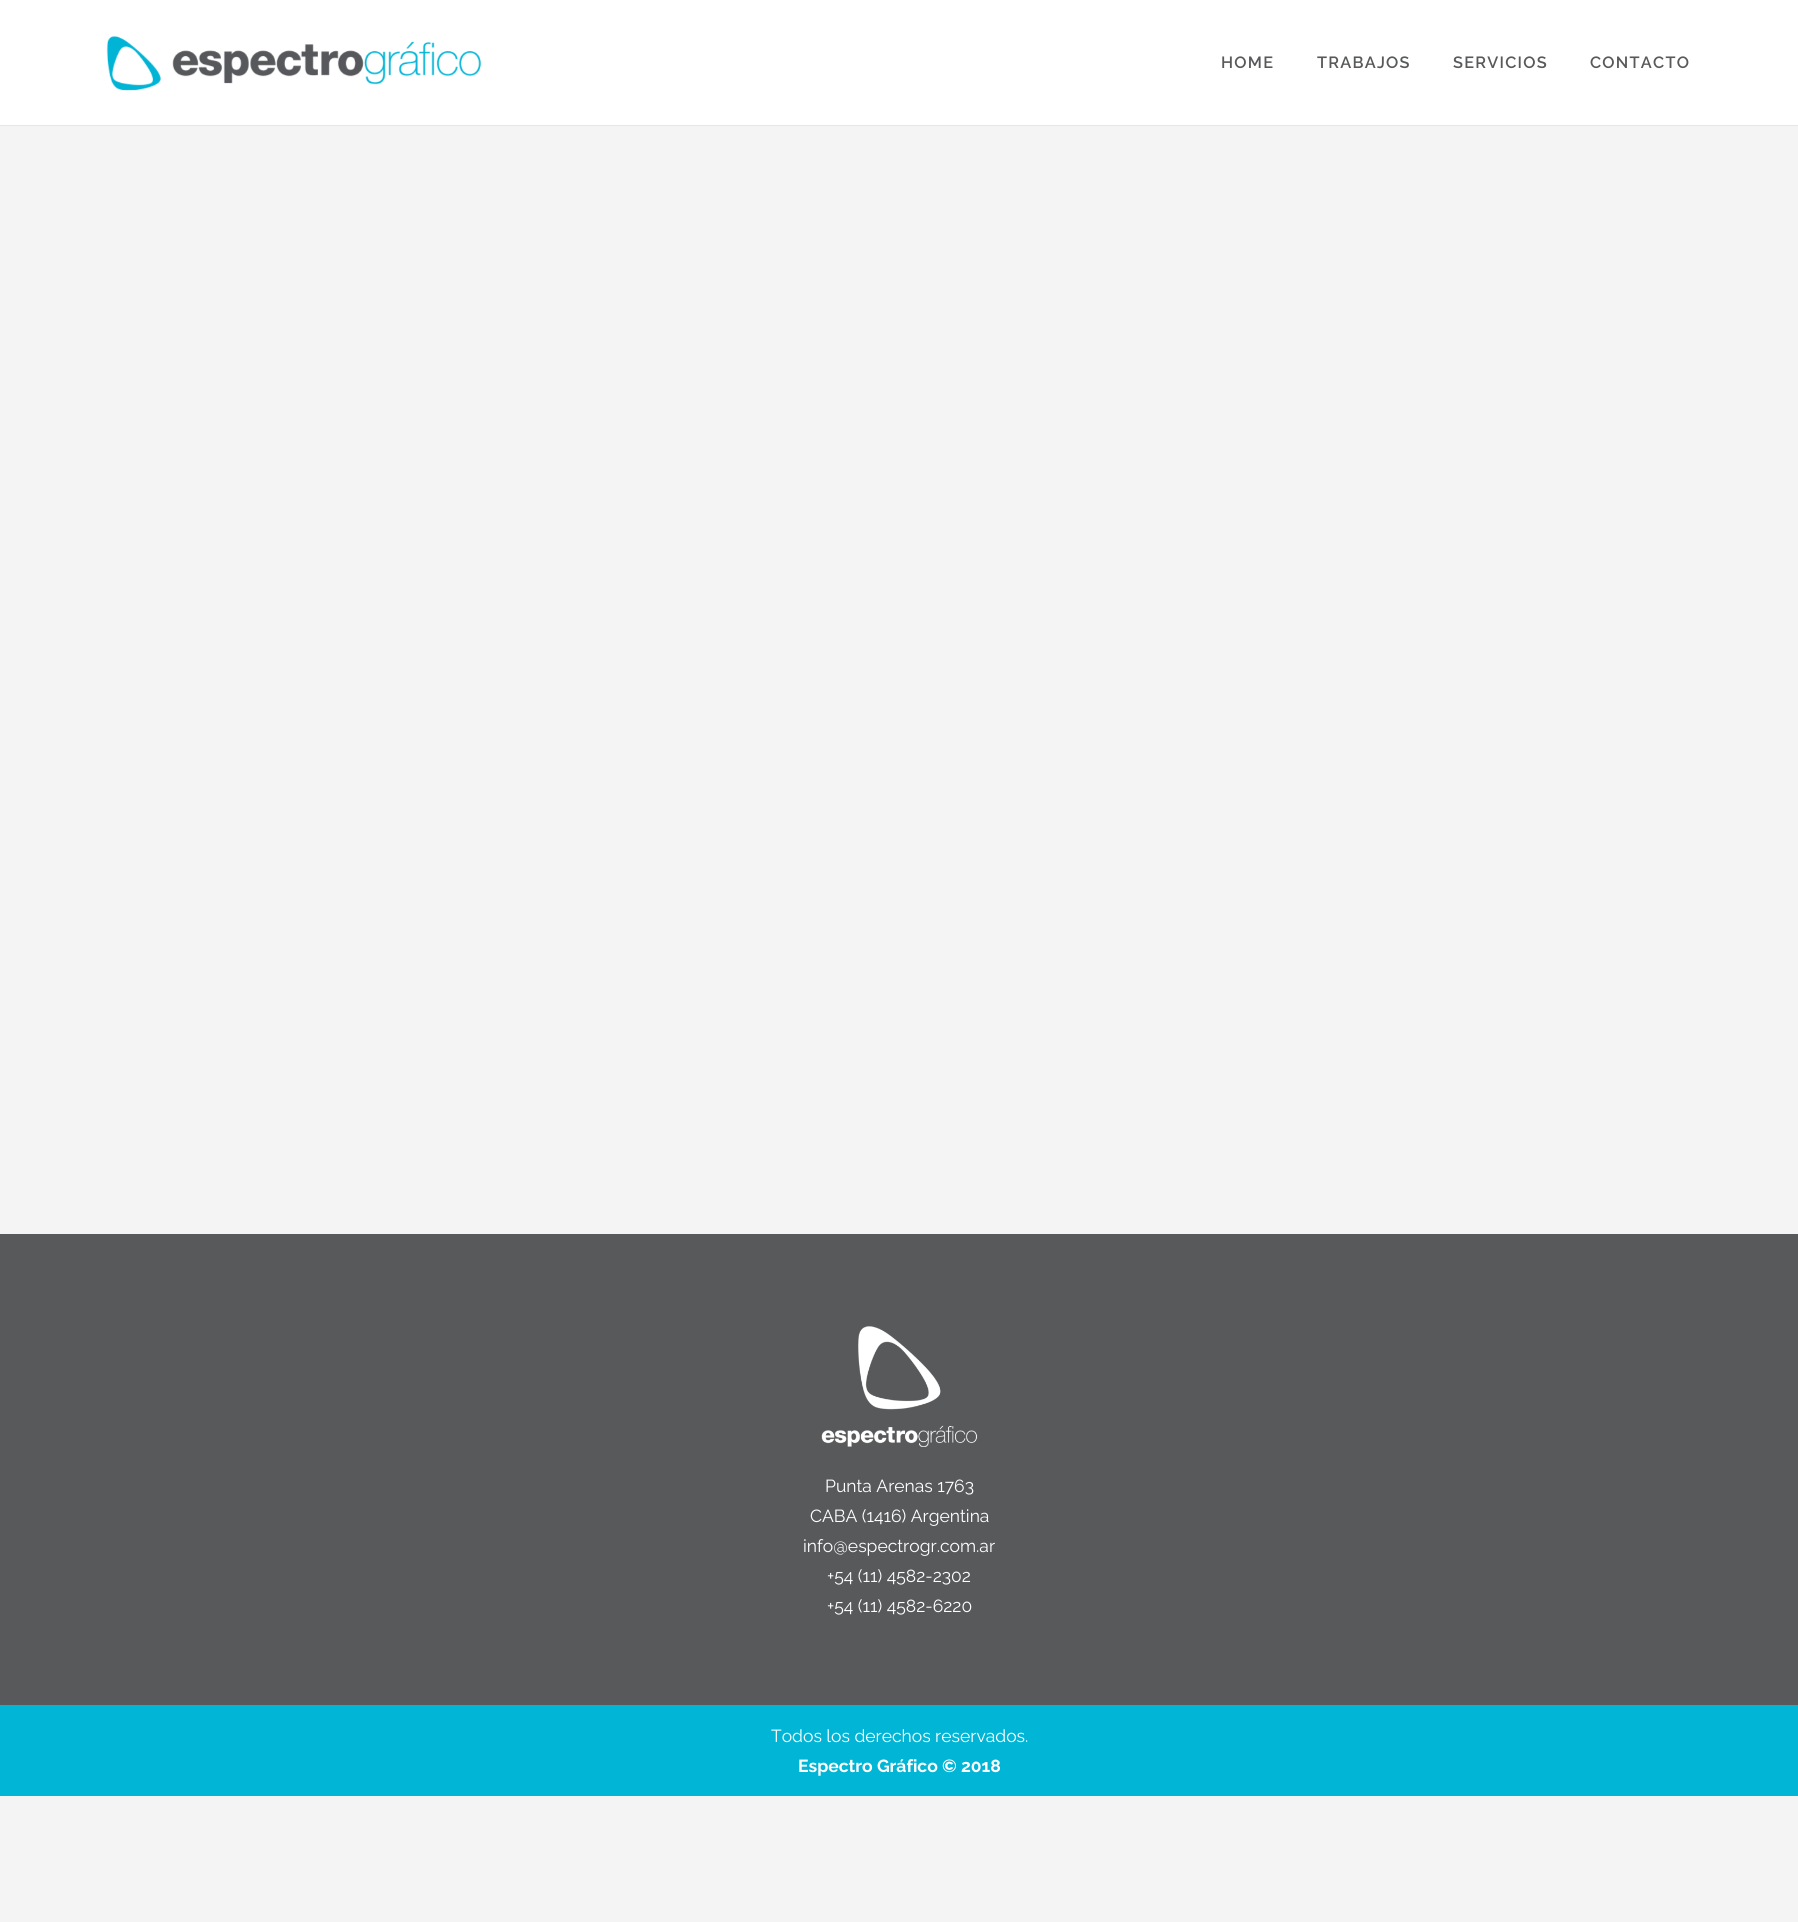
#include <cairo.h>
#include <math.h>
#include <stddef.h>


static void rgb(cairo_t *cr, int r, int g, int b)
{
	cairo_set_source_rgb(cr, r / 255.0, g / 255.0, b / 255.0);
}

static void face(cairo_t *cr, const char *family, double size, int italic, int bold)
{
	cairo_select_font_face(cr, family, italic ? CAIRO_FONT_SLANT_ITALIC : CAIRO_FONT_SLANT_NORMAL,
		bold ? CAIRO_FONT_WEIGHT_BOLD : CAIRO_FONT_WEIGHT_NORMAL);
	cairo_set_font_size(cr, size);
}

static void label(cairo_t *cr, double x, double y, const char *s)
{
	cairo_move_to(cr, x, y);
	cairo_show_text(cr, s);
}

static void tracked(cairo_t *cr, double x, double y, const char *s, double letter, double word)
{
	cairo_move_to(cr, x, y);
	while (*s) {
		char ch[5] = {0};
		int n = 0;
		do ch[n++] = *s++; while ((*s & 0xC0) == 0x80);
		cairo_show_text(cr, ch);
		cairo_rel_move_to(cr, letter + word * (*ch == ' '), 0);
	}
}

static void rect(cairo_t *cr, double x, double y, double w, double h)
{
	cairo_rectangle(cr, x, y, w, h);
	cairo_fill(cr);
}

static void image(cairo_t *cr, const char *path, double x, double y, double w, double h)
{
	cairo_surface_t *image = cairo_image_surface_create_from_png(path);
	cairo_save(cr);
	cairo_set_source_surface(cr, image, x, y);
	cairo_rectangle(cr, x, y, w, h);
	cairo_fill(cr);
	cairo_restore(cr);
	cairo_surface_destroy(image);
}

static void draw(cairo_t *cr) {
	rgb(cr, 244, 244, 244);
	cairo_paint(cr);
	rgb(cr, 255, 255, 255);
	rect(cr, 0, 0, 1798, 125);
	rgb(cr, 230, 230, 230);
	rect(cr, 0, 125, 1798, 1);
	image(cr, "image0.png", 106, 36, 375, 55);
	face(cr, "Raleway SemiBold", 16.25, 0, 0);
	rgb(cr, 88, 89, 91);
	tracked(cr, 1221, 68, "HOME", 1.25, 0);
	tracked(cr, 1317, 68, "TRABAJOS", 1.25, 0);
	tracked(cr, 1453, 68, "SERVICIOS", 1.25, 0);
	tracked(cr, 1590, 68, "CONTACTO", 1.25, 0);
	rect(cr, 0, 1234, 1798, 471);
	image(cr, "image1.png", 821, 1326, 157, 121);
	face(cr, "Raleway", 17.5, 0, 0);
	rgb(cr, 255, 255, 255);
	label(cr, 825, 1492, "Punta Arenas 1763");
	label(cr, 810, 1522, "CABA (1416) Argentina");
	label(cr, 803, 1552, "info@espectrogr.com.ar");
	label(cr, 827, 1582, "+54 (11) 4582-2302");
	label(cr, 827, 1612, "+54 (11) 4582-6220");
	rgb(cr, 0, 181, 213);
	rect(cr, 0, 1705, 1798, 91);
	rgb(cr, 255, 255, 255);
	label(cr, 771, 1742, "Todos los derechos reservados.");
	face(cr, "Raleway", 17.5, 0, 1);
	label(cr, 798, 1772, "Espectro Gráfico © 2018");
}

int main(void) {
	cairo_surface_t *surface = cairo_image_surface_create(CAIRO_FORMAT_RGB24, 1798, 1922);
	cairo_t *cr = cairo_create(surface);
	cairo_font_options_t *options = cairo_font_options_create();
	cairo_font_options_set_hint_metrics(options, CAIRO_HINT_METRICS_OFF);
	cairo_font_options_set_hint_style(options, CAIRO_HINT_STYLE_NONE);
	cairo_set_font_options(cr, options);
	cairo_set_miter_limit(cr, 4);
	draw(cr);
	cairo_surface_write_to_png(surface, "render.png");
	cairo_font_options_destroy(options);
	cairo_destroy(cr);
	cairo_surface_destroy(surface);
	return 0;
}
